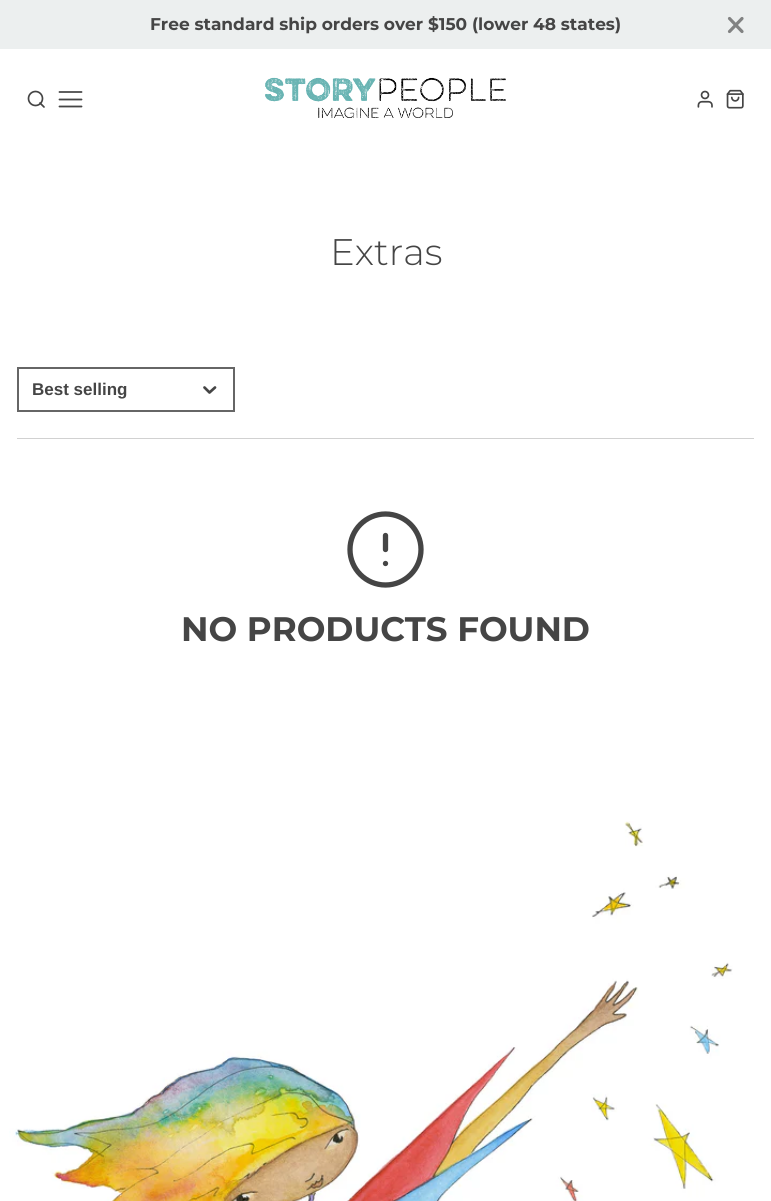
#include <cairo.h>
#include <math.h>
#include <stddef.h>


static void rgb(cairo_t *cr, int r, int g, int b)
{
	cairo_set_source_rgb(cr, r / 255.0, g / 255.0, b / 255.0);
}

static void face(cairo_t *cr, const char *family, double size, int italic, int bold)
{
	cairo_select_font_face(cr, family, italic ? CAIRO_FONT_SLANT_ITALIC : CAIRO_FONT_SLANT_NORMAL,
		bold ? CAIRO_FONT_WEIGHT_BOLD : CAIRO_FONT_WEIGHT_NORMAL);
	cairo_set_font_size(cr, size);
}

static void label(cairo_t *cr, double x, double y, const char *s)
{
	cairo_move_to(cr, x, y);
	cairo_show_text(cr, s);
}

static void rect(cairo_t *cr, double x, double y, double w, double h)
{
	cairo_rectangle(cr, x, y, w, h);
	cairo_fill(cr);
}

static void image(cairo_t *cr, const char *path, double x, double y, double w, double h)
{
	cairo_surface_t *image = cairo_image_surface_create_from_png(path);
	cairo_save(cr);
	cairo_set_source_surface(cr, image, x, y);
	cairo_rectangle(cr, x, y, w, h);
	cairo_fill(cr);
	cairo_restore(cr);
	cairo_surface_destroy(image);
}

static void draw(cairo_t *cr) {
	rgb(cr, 255, 255, 255);
	cairo_paint(cr);
	rgb(cr, 236, 239, 239);
	rect(cr, 0, 0, 771, 49);
	face(cr, "Montserrat", 17, 0, 1);
	rgb(cr, 69, 69, 69);
	label(cr, 150, 30, "Free standard ship orders over $150 (lower 48 states)");
	cairo_new_path(cr);
	cairo_move_to(cr, 742, 18.5);
	cairo_line_to(cr, 729.5, 31.5);
	cairo_move_to(cr, 729.5, 18.5);
	cairo_line_to(cr, 742, 31.5);
	rgb(cr, 129, 130, 130);
	cairo_set_line_width(cr, 3.2);
	cairo_set_line_cap(cr, CAIRO_LINE_CAP_ROUND);
	cairo_set_line_join(cr, CAIRO_LINE_JOIN_ROUND);
	cairo_stroke(cr);
	cairo_arc(cr, 35.5, 98.5, 7, 0, 2 * M_PI);
	rgb(cr, 69, 69, 69);
	cairo_set_line_width(cr, 1.7);
	cairo_set_line_cap(cr, CAIRO_LINE_CAP_BUTT);
	cairo_set_line_join(cr, CAIRO_LINE_JOIN_MITER);
	cairo_stroke(cr);
	cairo_new_path(cr);
	cairo_move_to(cr, 44, 107);
	cairo_line_to(cr, 40, 103);
	cairo_set_line_cap(cr, CAIRO_LINE_CAP_ROUND);
	cairo_set_line_join(cr, CAIRO_LINE_JOIN_ROUND);
	cairo_stroke(cr);
	cairo_new_path(cr);
	cairo_move_to(cr, 59.5, 99.5);
	cairo_line_to(cr, 81.5, 99.5);
	cairo_move_to(cr, 59.5, 92);
	cairo_line_to(cr, 81.5, 92);
	cairo_move_to(cr, 59.5, 106.5);
	cairo_line_to(cr, 81.5, 106.5);
	cairo_set_line_width(cr, 1.8);
	cairo_stroke(cr);
	image(cr, "image0.png", 265, 77, 241, 41);
	image(cr, "image1.png", 697, 90, 16, 18);
	image(cr, "image2.png", 726, 89, 18, 20);
	face(cr, "Montserrat Light", 37, 0, 0);
	label(cr, 330, 265, "Extras");
	rgb(cr, 209, 209, 209);
	rect(cr, 17, 438, 737, 1);
	cairo_rectangle(cr, 18, 368, 216, 43);
	rgb(cr, 102, 102, 102);
	cairo_set_line_width(cr, 2);
	cairo_set_line_cap(cr, CAIRO_LINE_CAP_BUTT);
	cairo_set_line_join(cr, CAIRO_LINE_JOIN_MITER);
	cairo_stroke(cr);
	face(cr, "Liberation Sans", 17, 0, 1);
	rgb(cr, 69, 69, 69);
	label(cr, 32, 395, "Best selling");
	cairo_new_path(cr);
	cairo_move_to(cr, 204.5, 387.5);
	cairo_line_to(cr, 209.5, 392.5);
	cairo_line_to(cr, 215, 387.5);
	cairo_set_line_width(cr, 2.7);
	cairo_set_line_cap(cr, CAIRO_LINE_CAP_ROUND);
	cairo_set_line_join(cr, CAIRO_LINE_JOIN_ROUND);
	cairo_stroke(cr);
	cairo_arc(cr, 385.5, 549.5, 35.5, 0, 2 * M_PI);
	cairo_set_line_width(cr, 5.3);
	cairo_set_line_cap(cr, CAIRO_LINE_CAP_BUTT);
	cairo_set_line_join(cr, CAIRO_LINE_JOIN_MITER);
	cairo_stroke(cr);
	cairo_new_path(cr);
	cairo_move_to(cr, 385.5, 535.5);
	cairo_line_to(cr, 385.5, 549.5);
	cairo_move_to(cr, 385.5, 563.5);
	cairo_line_to(cr, 385.5, 563.5);
	cairo_set_line_cap(cr, CAIRO_LINE_CAP_ROUND);
	cairo_set_line_join(cr, CAIRO_LINE_JOIN_ROUND);
	cairo_stroke(cr);
	face(cr, "Montserrat", 34, 0, 1);
	label(cr, 181, 641, "NO PRODUCTS FOUND");
	image(cr, "image3.png", 9, 821, 724, 380);
}

int main(void) {
	cairo_surface_t *surface = cairo_image_surface_create(CAIRO_FORMAT_RGB24, 771, 1201);
	cairo_t *cr = cairo_create(surface);
	cairo_font_options_t *options = cairo_font_options_create();
	cairo_font_options_set_hint_metrics(options, CAIRO_HINT_METRICS_OFF);
	cairo_font_options_set_hint_style(options, CAIRO_HINT_STYLE_NONE);
	cairo_set_font_options(cr, options);
	cairo_set_miter_limit(cr, 4);
	draw(cr);
	cairo_surface_write_to_png(surface, "render.png");
	cairo_font_options_destroy(options);
	cairo_destroy(cr);
	cairo_surface_destroy(surface);
	return 0;
}
